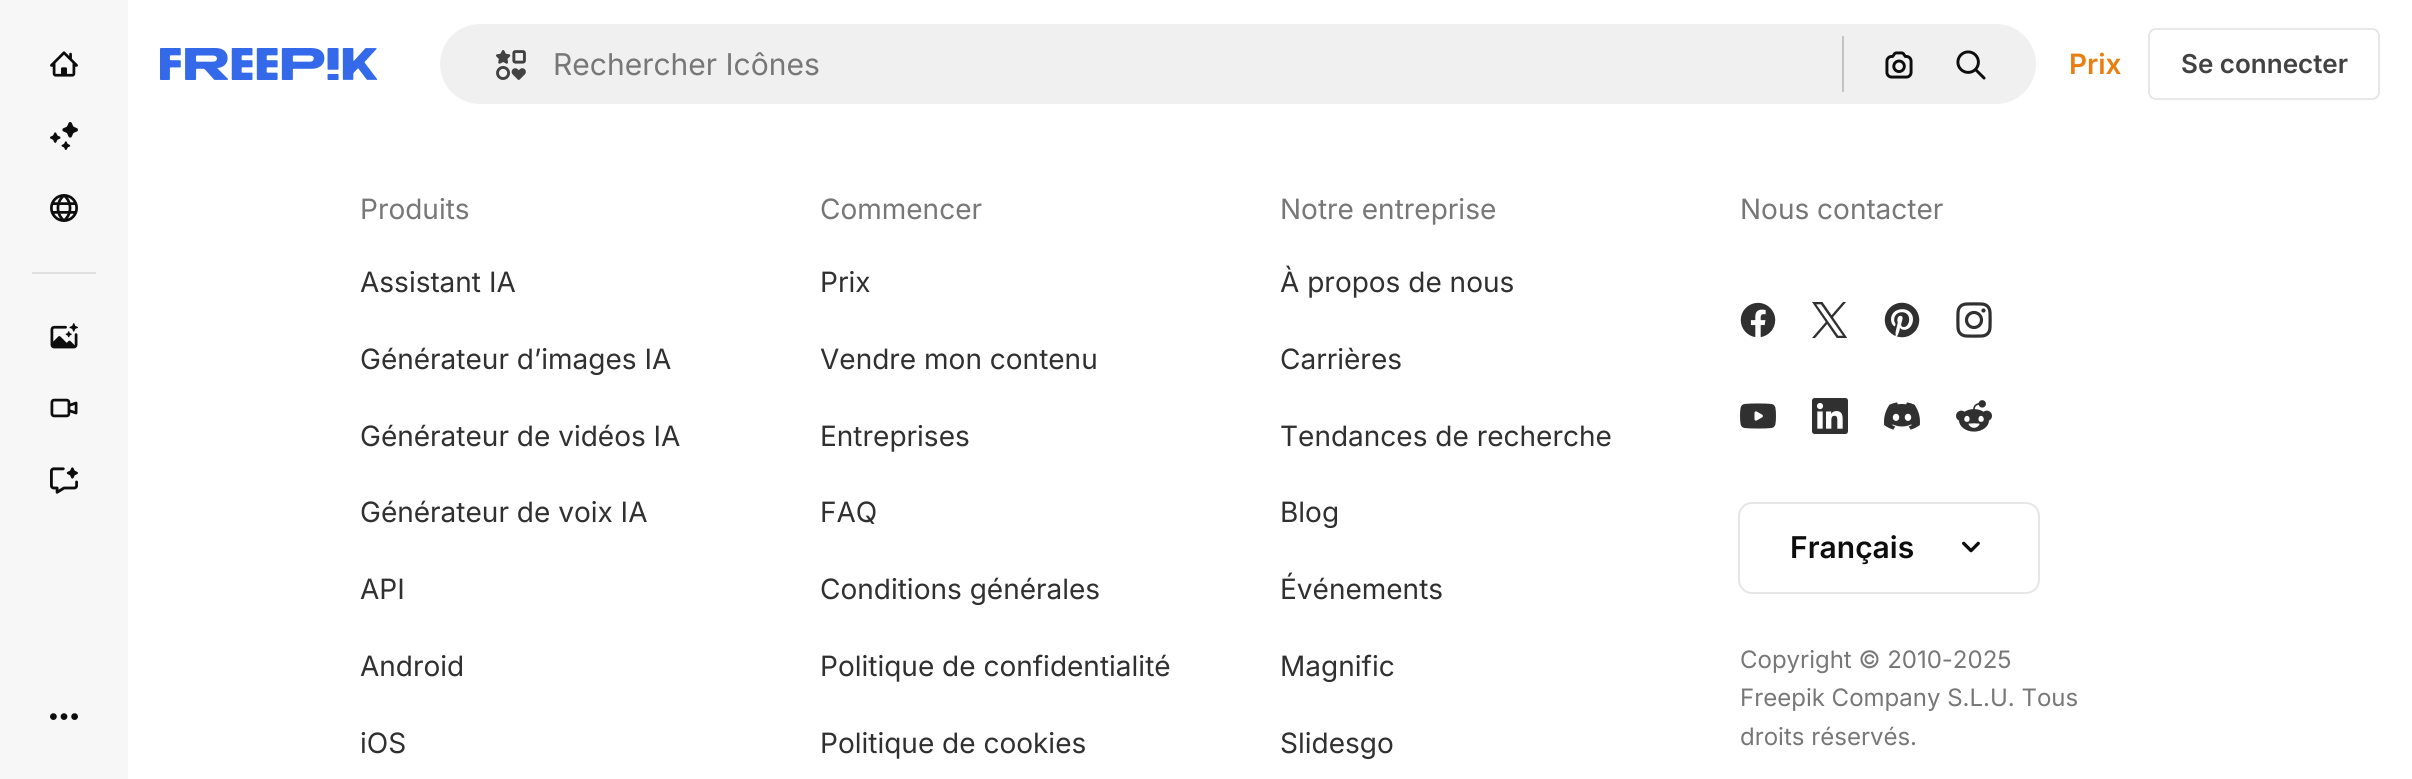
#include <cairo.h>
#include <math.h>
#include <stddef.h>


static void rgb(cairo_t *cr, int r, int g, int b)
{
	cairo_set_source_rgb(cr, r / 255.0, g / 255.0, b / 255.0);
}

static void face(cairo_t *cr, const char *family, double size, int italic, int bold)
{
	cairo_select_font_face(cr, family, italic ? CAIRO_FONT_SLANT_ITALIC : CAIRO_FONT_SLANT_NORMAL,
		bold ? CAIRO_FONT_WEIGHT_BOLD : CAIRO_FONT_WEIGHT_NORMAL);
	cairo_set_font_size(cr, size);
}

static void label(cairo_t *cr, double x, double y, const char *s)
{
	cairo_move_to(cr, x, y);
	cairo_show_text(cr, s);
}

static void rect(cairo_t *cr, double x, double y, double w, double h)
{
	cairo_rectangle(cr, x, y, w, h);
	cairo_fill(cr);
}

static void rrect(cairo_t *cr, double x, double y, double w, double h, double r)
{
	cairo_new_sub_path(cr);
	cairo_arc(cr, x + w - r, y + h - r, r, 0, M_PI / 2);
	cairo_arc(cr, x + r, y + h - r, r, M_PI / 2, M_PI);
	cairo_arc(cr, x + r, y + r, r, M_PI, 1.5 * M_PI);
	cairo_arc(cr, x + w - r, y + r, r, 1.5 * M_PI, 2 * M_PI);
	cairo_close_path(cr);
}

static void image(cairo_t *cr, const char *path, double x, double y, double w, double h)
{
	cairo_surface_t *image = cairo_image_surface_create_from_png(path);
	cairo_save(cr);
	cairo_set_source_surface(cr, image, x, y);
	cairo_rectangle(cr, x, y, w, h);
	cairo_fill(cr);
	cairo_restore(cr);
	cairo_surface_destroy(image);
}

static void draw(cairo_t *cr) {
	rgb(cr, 255, 255, 255);
	cairo_paint(cr);
	rgb(cr, 247, 247, 247);
	rect(cr, 0, 0, 128, 779);
	image(cr, "image0.png", 50, 51, 28, 26);
	image(cr, "image1.png", 50, 122, 28, 28);
	image(cr, "image2.png", 50, 194, 28, 28);
	rgb(cr, 224, 224, 224);
	rect(cr, 32, 272, 64, 2);
	image(cr, "image3.png", 50, 323, 28, 26);
	image(cr, "image4.png", 50, 398, 28, 20);
	image(cr, "image5.png", 50, 467, 28, 27);
	image(cr, "image6.png", 50, 713, 28, 7);
	image(cr, "image7.png", 160, 48, 218, 32);
	rgb(cr, 240, 240, 240);
	rrect(cr, 439, 23, 1598, 82, 41);
	cairo_fill_preserve(cr);
	rgb(cr, 255, 255, 255);
	cairo_stroke(cr);
	image(cr, "image8.png", 496, 50, 30, 30);
	face(cr, "Inter", 30, 0, 0);
	rgb(cr, 119, 119, 119);
	label(cr, 553, 75, "Rechercher Icônes");
	rgb(cr, 195, 195, 195);
	rect(cr, 1842, 36, 2, 56);
	image(cr, "image9.png", 1885, 51, 28, 28);
	image(cr, "image10.png", 1956, 50, 30, 30);
	face(cr, "Inter SemiBold", 28, 0, 0);
	rgb(cr, 234, 126, 17);
	label(cr, 2069, 74, "Prix");
	rrect(cr, 2149, 29, 230, 70, 7);
	rgb(cr, 231, 231, 231);
	cairo_stroke(cr);
	face(cr, "Inter SemiBold", 26, 0, 0);
	rgb(cr, 66, 66, 66);
	label(cr, 2181, 73, "Se connecter");
	face(cr, "Inter", 28, 0, 0);
	rgb(cr, 119, 119, 119);
	label(cr, 360, 219, "Produits");
	rgb(cr, 48, 48, 48);
	label(cr, 360, 292, "Assistant IA");
	label(cr, 360, 369, "Générateur d’images IA");
	label(cr, 360, 446, "Générateur de vidéos IA");
	label(cr, 360, 522, "Générateur de voix IA");
	label(cr, 360, 599, "API");
	label(cr, 360, 676, "Android");
	label(cr, 360, 753, "iOS");
	rgb(cr, 119, 119, 119);
	label(cr, 820, 219, "Commencer");
	rgb(cr, 48, 48, 48);
	label(cr, 820, 292, "Prix");
	label(cr, 820, 369, "Vendre mon contenu");
	label(cr, 820, 446, "Entreprises");
	label(cr, 820, 522, "FAQ");
	label(cr, 820, 599, "Conditions générales");
	label(cr, 820, 676, "Politique de confidentialité");
	label(cr, 820, 753, "Politique de cookies");
	rgb(cr, 119, 119, 119);
	label(cr, 1280, 219, "Notre entreprise");
	rgb(cr, 48, 48, 48);
	label(cr, 1280, 292, "À propos de nous");
	label(cr, 1280, 369, "Carrières");
	label(cr, 1280, 446, "Tendances de recherche");
	label(cr, 1280, 522, "Blog");
	label(cr, 1280, 599, "Événements");
	label(cr, 1280, 676, "Magnific");
	label(cr, 1280, 753, "Slidesgo");
	rgb(cr, 119, 119, 119);
	label(cr, 1740, 219, "Nous contacter");
	image(cr, "image11.png", 1740, 302, 36, 36);
	image(cr, "image12.png", 1812, 302, 36, 36);
	image(cr, "image13.png", 1884, 302, 36, 36);
	image(cr, "image14.png", 1956, 302, 36, 36);
	image(cr, "image15.png", 1740, 403, 36, 26);
	image(cr, "image16.png", 1812, 398, 36, 36);
	image(cr, "image17.png", 1884, 402, 36, 28);
	image(cr, "image18.png", 1956, 400, 36, 32);
	rrect(cr, 1739, 503, 300, 90, 13);
	rgb(cr, 230, 230, 230);
	cairo_stroke(cr);
	face(cr, "Inter SemiBold", 30, 0, 0);
	rgb(cr, 13, 13, 13);
	label(cr, 1790, 558, "Français");
	image(cr, "image19.png", 1962, 541, 18, 12);
	face(cr, "Inter", 24, 0, 0);
	rgb(cr, 119, 119, 119);
	label(cr, 1740, 668, "Copyright © 2010-2025");
	label(cr, 1740, 706, "Freepik Company S.L.U. Tous");
	label(cr, 1740, 745, "droits réservés.");
}

int main(void) {
	cairo_surface_t *surface = cairo_image_surface_create(CAIRO_FORMAT_RGB24, 2412, 779);
	cairo_t *cr = cairo_create(surface);
	cairo_font_options_t *options = cairo_font_options_create();
	cairo_font_options_set_hint_metrics(options, CAIRO_HINT_METRICS_OFF);
	cairo_font_options_set_hint_style(options, CAIRO_HINT_STYLE_NONE);
	cairo_set_font_options(cr, options);
	cairo_set_miter_limit(cr, 4);
	draw(cr);
	cairo_surface_write_to_png(surface, "render.png");
	cairo_font_options_destroy(options);
	cairo_destroy(cr);
	cairo_surface_destroy(surface);
	return 0;
}
